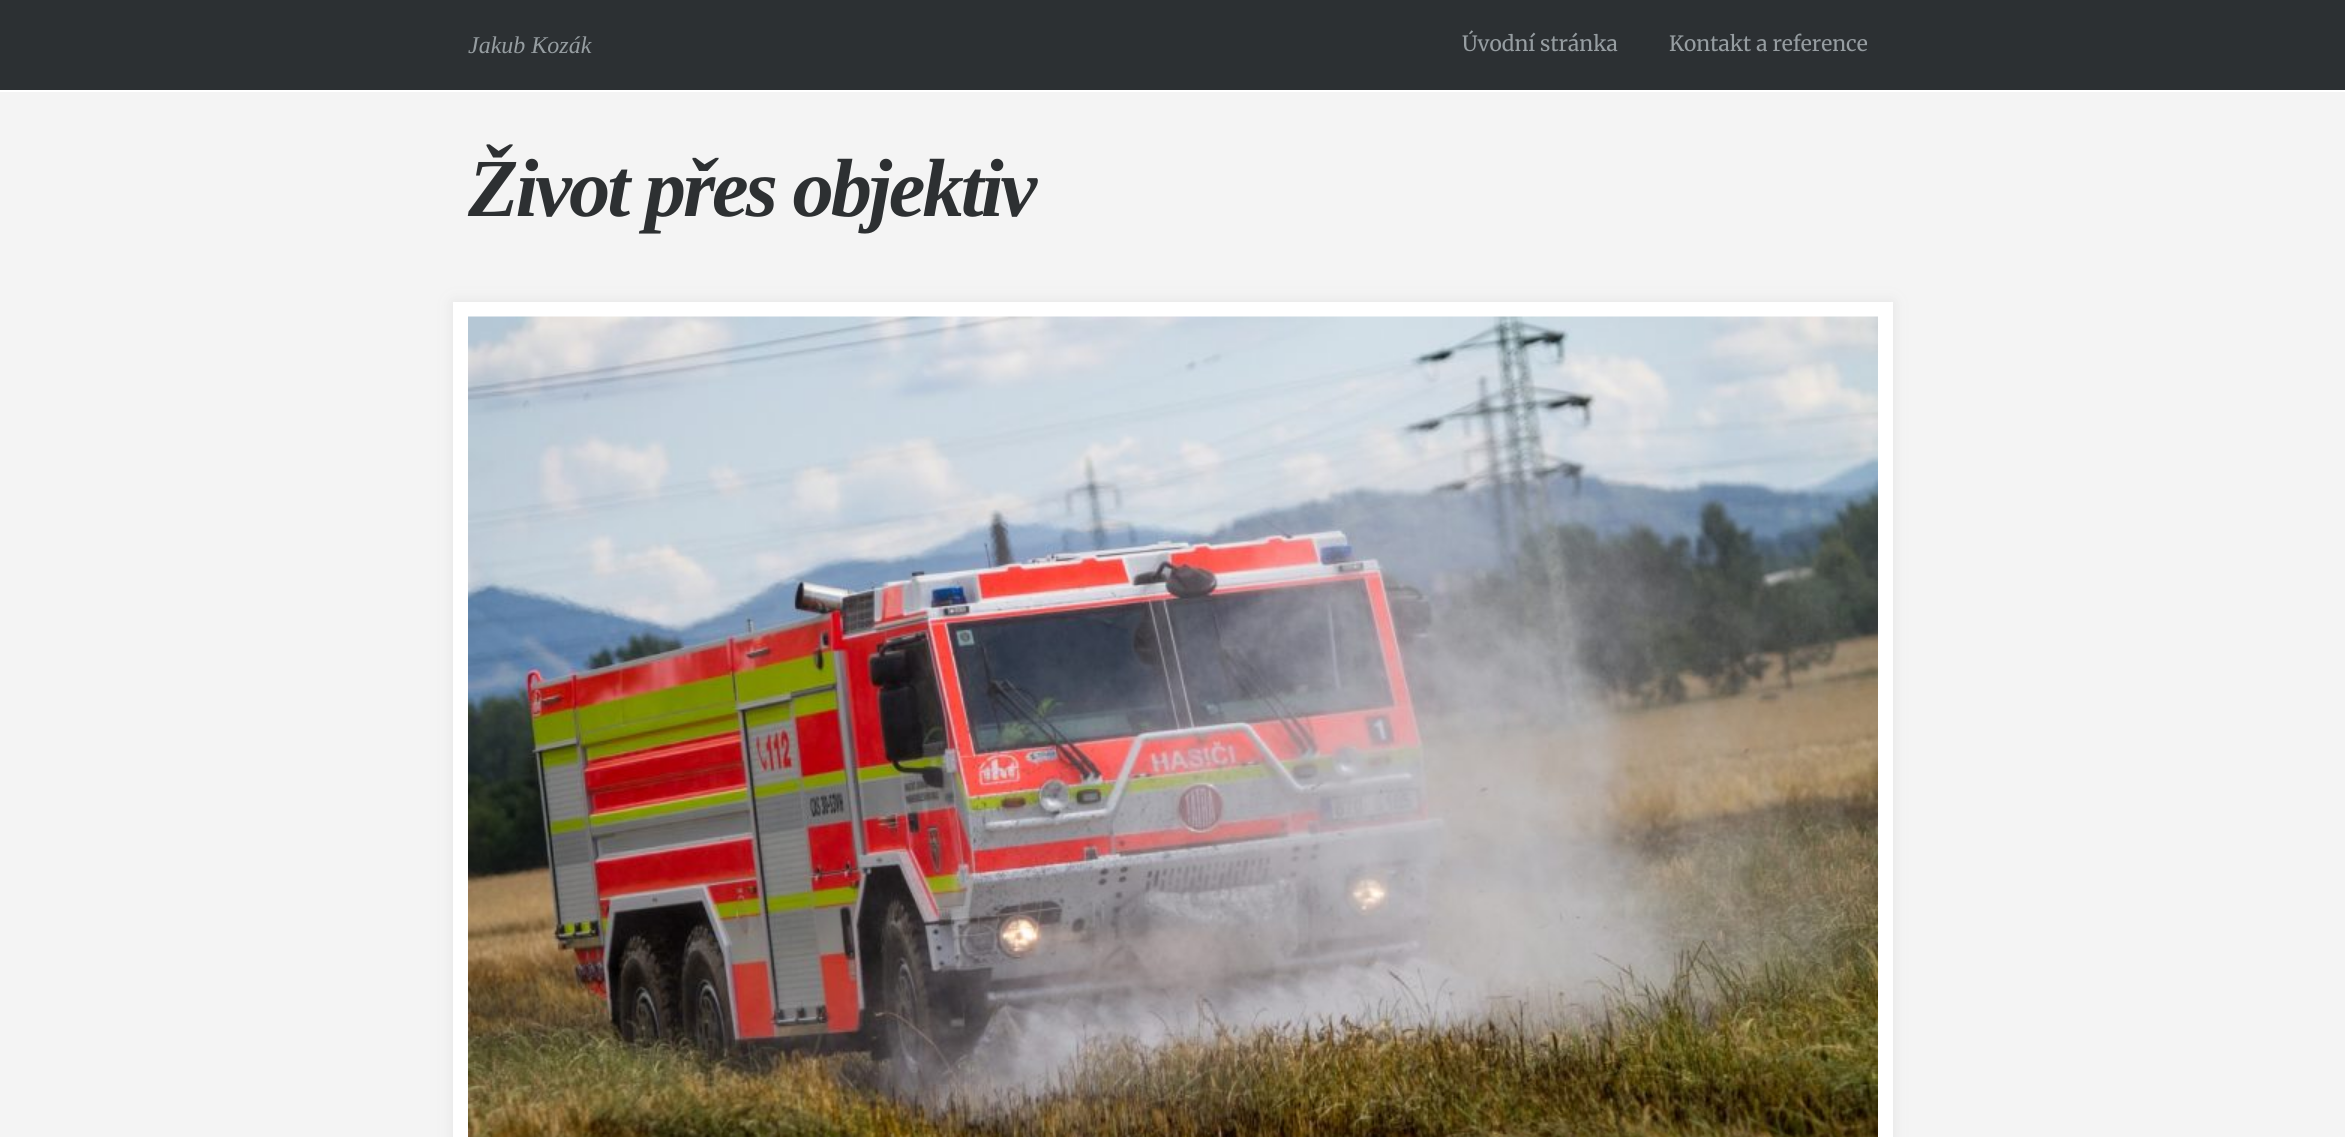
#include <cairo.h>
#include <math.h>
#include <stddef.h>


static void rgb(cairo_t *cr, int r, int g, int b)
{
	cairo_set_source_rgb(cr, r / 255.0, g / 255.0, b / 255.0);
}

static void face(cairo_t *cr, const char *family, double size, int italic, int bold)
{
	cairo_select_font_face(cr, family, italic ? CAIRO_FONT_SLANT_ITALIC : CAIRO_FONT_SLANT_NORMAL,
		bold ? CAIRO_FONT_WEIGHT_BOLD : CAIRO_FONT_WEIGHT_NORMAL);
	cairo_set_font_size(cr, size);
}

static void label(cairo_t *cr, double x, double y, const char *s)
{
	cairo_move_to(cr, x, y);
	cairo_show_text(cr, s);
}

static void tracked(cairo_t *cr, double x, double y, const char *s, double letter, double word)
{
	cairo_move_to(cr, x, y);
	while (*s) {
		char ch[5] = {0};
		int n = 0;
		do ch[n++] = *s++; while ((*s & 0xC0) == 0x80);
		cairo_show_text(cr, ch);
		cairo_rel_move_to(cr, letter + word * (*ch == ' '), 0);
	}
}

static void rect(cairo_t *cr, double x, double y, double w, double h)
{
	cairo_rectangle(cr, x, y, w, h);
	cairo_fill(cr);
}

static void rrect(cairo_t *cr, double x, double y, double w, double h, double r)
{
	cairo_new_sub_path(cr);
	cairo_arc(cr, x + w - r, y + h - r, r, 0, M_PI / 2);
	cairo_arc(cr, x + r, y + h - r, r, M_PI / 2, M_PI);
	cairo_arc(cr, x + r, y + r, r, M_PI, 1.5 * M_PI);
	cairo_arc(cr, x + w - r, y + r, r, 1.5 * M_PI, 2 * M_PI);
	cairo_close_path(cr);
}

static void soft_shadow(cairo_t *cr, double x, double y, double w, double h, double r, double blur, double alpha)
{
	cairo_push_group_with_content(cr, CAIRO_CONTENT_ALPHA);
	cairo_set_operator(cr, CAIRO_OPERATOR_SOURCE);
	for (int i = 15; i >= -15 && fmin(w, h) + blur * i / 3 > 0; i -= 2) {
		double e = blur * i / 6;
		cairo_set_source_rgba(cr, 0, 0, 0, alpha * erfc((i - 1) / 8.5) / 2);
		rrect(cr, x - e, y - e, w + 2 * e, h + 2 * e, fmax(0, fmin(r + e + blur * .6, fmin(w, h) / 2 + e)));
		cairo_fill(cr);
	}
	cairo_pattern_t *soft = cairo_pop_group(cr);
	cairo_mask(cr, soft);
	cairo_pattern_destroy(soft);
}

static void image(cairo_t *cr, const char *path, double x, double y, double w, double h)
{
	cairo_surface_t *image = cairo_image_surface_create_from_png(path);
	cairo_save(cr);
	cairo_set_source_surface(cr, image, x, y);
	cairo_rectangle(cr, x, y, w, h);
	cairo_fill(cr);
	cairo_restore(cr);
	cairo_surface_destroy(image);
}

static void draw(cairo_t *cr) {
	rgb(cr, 244, 244, 244);
	cairo_paint(cr);
	rgb(cr, 44, 48, 51);
	rect(cr, 0, 0, 2345, 90);
	rgb(cr, 255, 255, 255);
	rect(cr, 0, 90, 2345, 2);
	face(cr, "Liberation Serif", 24, 1, 0);
	rgb(cr, 150, 157, 161);
	label(cr, 468, 53, "Jakub Kozák");
	face(cr, "Merriweather", 21, 0, 0);
	label(cr, 1462, 51, "Úvodní stránka");
	label(cr, 1669, 51, "Kontakt a reference");
	face(cr, "Liberation Serif", 82.5, 1, 1);
	rgb(cr, 45, 48, 50);
	tracked(cr, 468, 216, "Život přes objektiv", -3, 0);
	rgb(cr, 228, 228, 228);
	soft_shadow(cr, 453, 302, 1440, 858, 0, 7.5, 1);
	rgb(cr, 255, 255, 255);
	rect(cr, 453, 302, 1440, 835);
	image(cr, "image0.png", 468, 316, 1410, 821);
}

int main(void) {
	cairo_surface_t *surface = cairo_image_surface_create(CAIRO_FORMAT_RGB24, 2345, 1137);
	cairo_t *cr = cairo_create(surface);
	cairo_font_options_t *options = cairo_font_options_create();
	cairo_font_options_set_hint_metrics(options, CAIRO_HINT_METRICS_OFF);
	cairo_font_options_set_hint_style(options, CAIRO_HINT_STYLE_NONE);
	cairo_set_font_options(cr, options);
	cairo_set_miter_limit(cr, 4);
	draw(cr);
	cairo_surface_write_to_png(surface, "render.png");
	cairo_font_options_destroy(options);
	cairo_destroy(cr);
	cairo_surface_destroy(surface);
	return 0;
}
